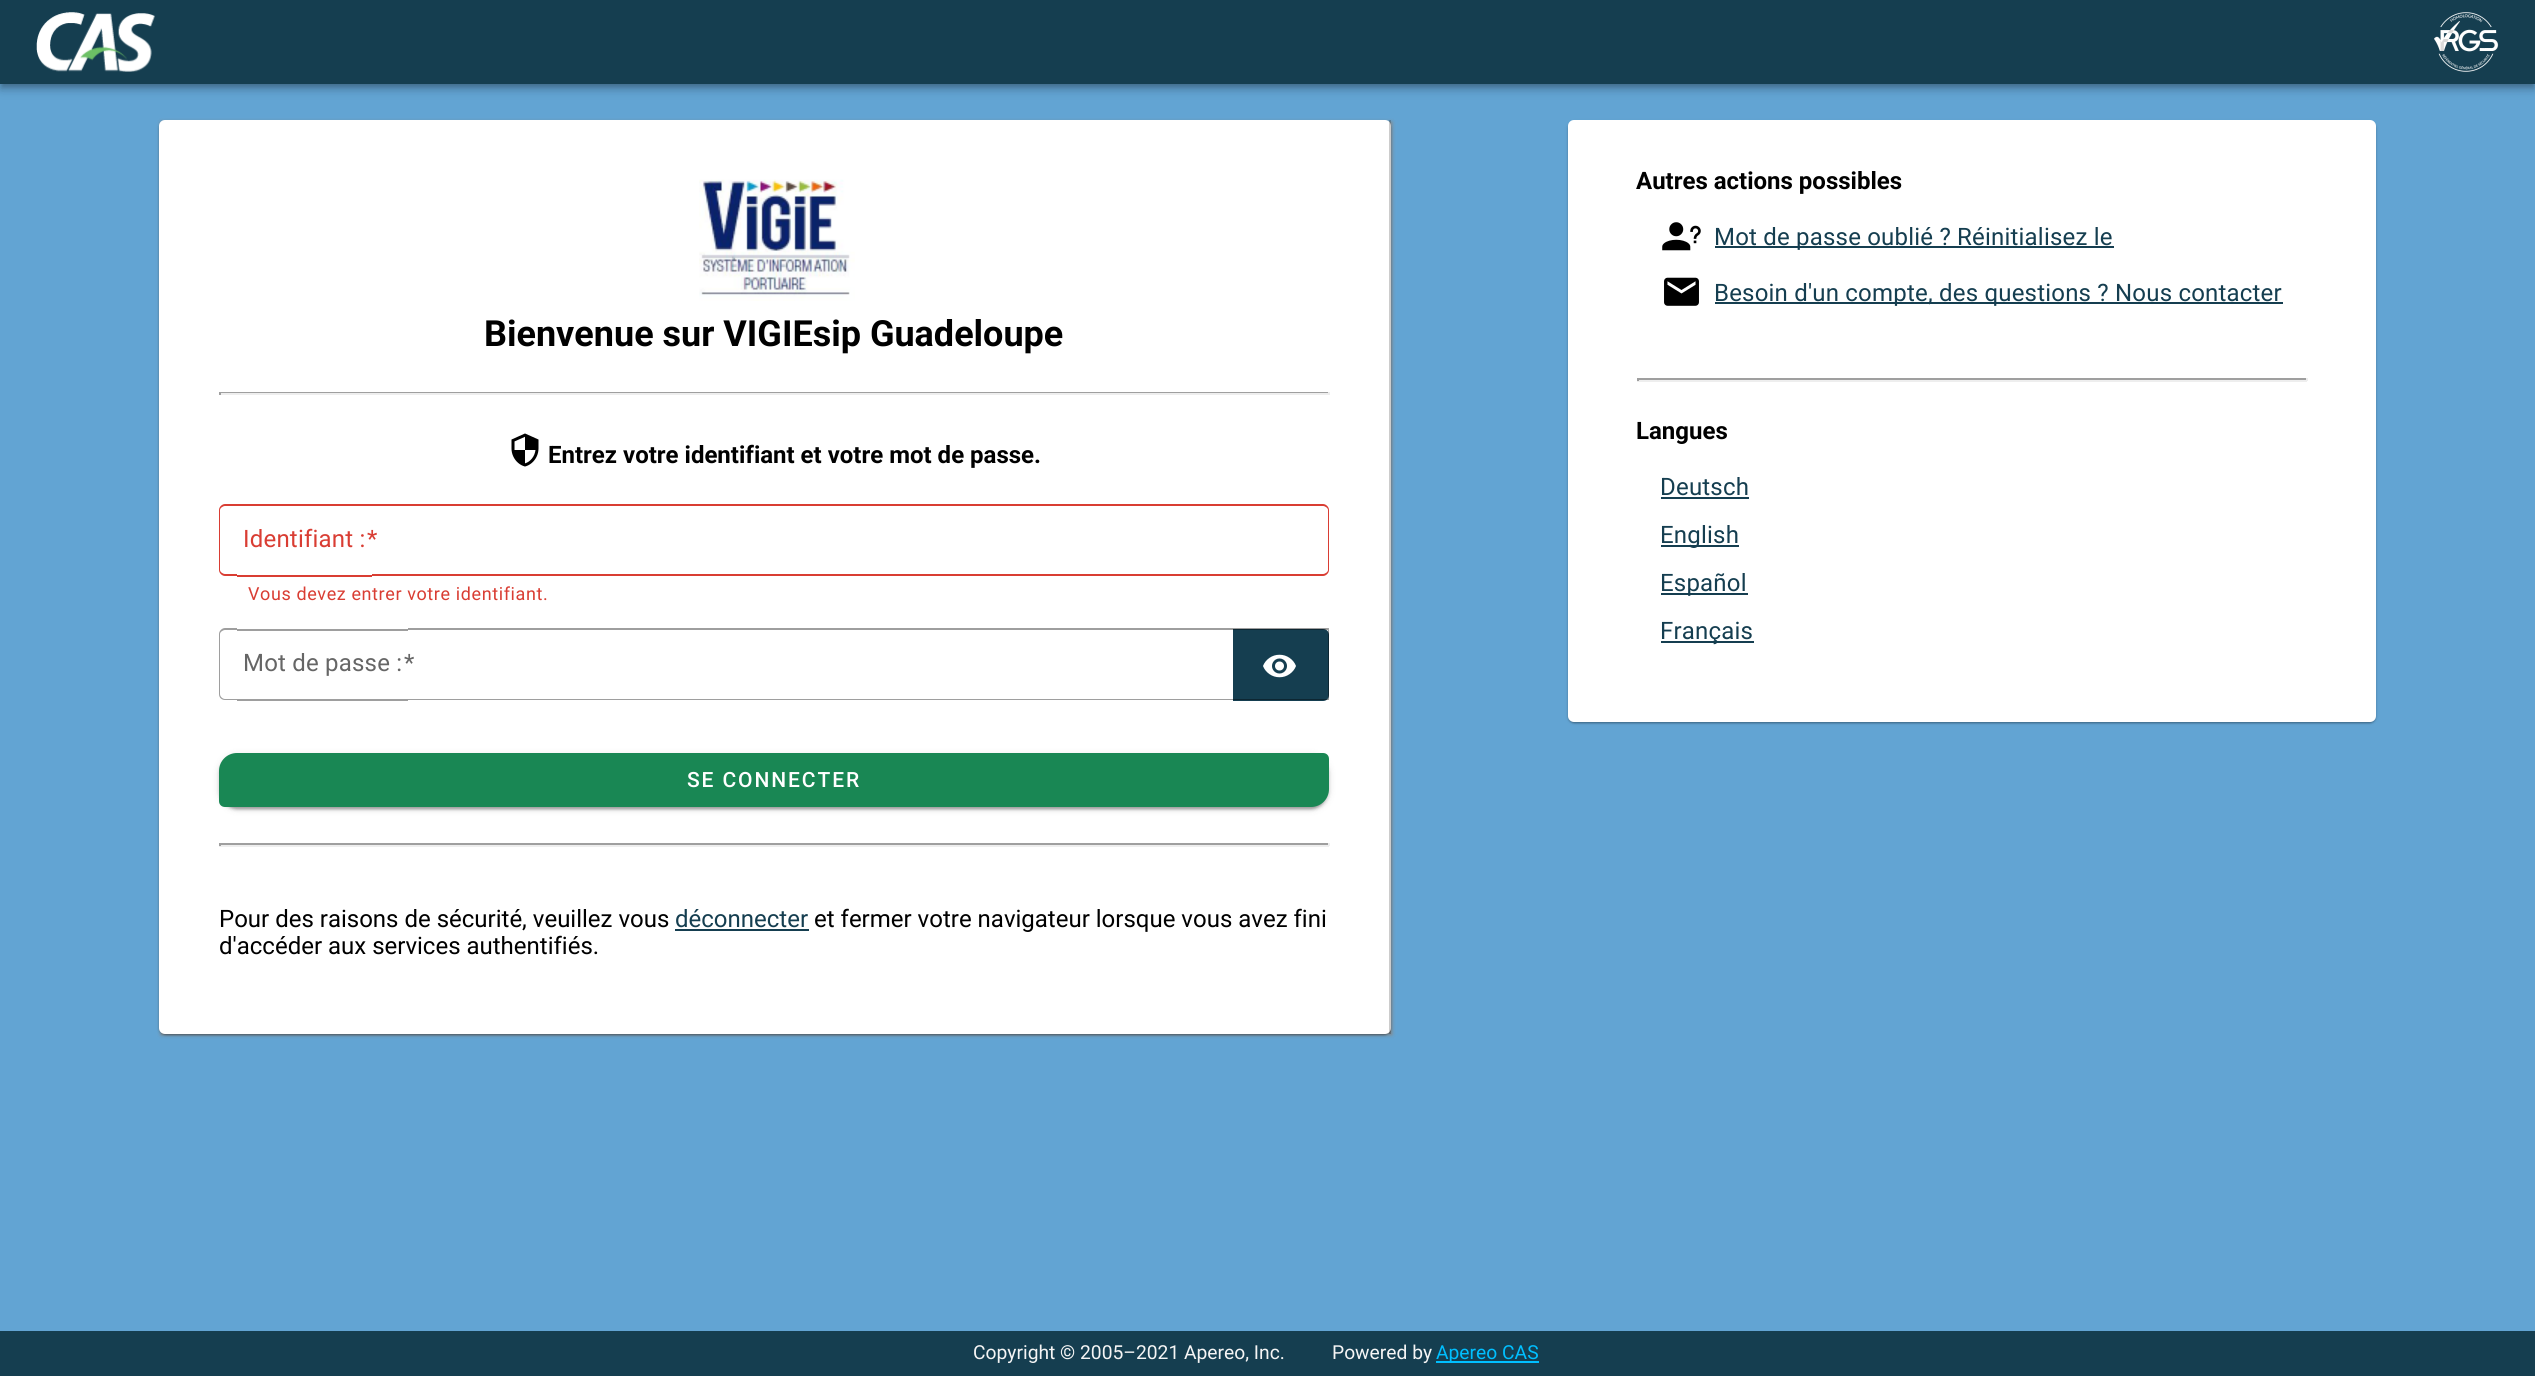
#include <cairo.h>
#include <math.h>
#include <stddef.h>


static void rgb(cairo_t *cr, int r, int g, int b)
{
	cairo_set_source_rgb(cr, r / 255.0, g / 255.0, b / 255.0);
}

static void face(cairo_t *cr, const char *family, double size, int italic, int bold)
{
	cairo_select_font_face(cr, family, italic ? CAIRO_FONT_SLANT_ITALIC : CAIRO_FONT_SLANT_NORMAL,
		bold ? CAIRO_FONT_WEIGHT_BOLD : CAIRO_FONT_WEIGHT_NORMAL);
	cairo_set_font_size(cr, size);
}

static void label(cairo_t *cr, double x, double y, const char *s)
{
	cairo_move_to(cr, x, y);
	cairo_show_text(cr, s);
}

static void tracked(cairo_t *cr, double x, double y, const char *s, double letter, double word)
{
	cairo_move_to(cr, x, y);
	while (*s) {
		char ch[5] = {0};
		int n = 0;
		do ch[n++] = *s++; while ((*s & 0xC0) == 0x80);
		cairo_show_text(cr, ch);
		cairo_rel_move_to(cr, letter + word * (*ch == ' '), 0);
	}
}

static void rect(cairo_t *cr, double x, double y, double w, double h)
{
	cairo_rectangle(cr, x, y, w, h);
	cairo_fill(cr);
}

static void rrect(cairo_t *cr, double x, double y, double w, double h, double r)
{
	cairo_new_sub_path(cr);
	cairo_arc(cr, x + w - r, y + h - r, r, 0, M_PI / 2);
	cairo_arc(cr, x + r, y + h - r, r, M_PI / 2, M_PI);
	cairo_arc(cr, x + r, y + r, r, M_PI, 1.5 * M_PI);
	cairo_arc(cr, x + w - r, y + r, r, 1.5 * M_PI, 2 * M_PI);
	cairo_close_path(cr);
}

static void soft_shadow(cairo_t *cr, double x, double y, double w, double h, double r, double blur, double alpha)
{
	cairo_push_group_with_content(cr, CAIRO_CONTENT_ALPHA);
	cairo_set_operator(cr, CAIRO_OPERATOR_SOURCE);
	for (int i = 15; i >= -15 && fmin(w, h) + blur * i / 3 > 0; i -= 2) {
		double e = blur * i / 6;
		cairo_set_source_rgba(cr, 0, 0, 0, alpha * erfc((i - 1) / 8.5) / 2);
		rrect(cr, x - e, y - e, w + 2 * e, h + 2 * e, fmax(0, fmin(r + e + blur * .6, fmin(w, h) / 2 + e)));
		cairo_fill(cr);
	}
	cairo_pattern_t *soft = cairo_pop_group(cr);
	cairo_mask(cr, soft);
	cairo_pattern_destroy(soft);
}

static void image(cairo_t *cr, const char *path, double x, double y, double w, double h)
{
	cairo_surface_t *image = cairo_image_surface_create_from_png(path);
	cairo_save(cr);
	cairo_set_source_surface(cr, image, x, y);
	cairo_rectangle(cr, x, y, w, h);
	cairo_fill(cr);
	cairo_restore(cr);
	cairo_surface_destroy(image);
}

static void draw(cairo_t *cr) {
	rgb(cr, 98, 164, 211);
	cairo_paint(cr);
	rgb(cr, 0, 0, 0);
	soft_shadow(cr, 0, 2, 2535, 84, 0, 7.5, 0.12);
	soft_shadow(cr, 0, 6, 2535, 84, 0, 4, 0.14);
	soft_shadow(cr, 2, 5, 2532, 81, 0, 3, 0.2);
	rgb(cr, 21, 62, 80);
	rect(cr, 0, 0, 2535, 84);
	image(cr, "image0.png", 36, 12, 119, 60);
	image(cr, "image1.png", 2434, 12, 65, 60);
	rgb(cr, 136, 136, 136);
	soft_shadow(cr, 161, 122, 1231, 913, 0, 2, 1);
	rgb(cr, 0, 0, 0);
	soft_shadow(cr, 159, 122, 1232, 913, 6, 2, 0.12);
	soft_shadow(cr, 159, 122, 1232, 913, 6, 1, 0.14);
	soft_shadow(cr, 161, 125, 1228, 910, 5, 1, 0.2);
	rgb(cr, 255, 255, 255);
	rrect(cr, 159, 120, 1232, 914, 6);
	cairo_fill(cr);
	cairo_set_source_rgba(cr, 0, 0, 0, 0.2);
	rect(cr, 1389, 120, 2, 914);
	image(cr, "image2.png", 699, 179, 156, 122);
	face(cr, "Roboto", 36, 0, 1);
	rgb(cr, 0, 0, 0);
	label(cr, 484, 346, "Bienvenue sur VIGIEsip Guadeloupe");
	rgb(cr, 159, 159, 159);
	rect(cr, 219, 392, 1110, 1);
	rgb(cr, 238, 238, 238);
	rect(cr, 1328, 392, 2, 3);
	rect(cr, 219, 393, 1110, 2);
	rgb(cr, 159, 159, 159);
	rect(cr, 219, 392, 2, 3);
	image(cr, "image3.png", 511, 433, 28, 34);
	face(cr, "Roboto", 24, 0, 1);
	rgb(cr, 0, 0, 0);
	label(cr, 548, 463, "Entrez votre identifiant et votre mot de passe.");
	rgb(cr, 217, 61, 51);
	cairo_set_fill_rule(cr, CAIRO_FILL_RULE_EVEN_ODD);
	cairo_new_path(cr);
	cairo_move_to(cr, 225, 504);
	cairo_line_to(cr, 237, 504);
	cairo_line_to(cr, 237, 576);
	cairo_line_to(cr, 225, 576);
	cairo_curve_to(cr, 222, 576, 219, 573, 219, 570);
	cairo_line_to(cr, 219, 510);
	cairo_curve_to(cr, 219, 507, 222, 504, 225, 504);
	cairo_close_path(cr);
	cairo_move_to(cr, 225, 506);
	cairo_line_to(cr, 237, 506);
	cairo_line_to(cr, 237, 574);
	cairo_line_to(cr, 225, 574);
	cairo_curve_to(cr, 223, 574, 220, 572, 220, 570);
	cairo_line_to(cr, 220, 510);
	cairo_curve_to(cr, 220, 508, 223, 506, 225, 506);
	cairo_close_path(cr);
	cairo_fill(cr);
	rect(cr, 237, 504, 135, 2);
	rect(cr, 237, 575, 135, 2);
	face(cr, "Roboto", 24, 0, 0);
	tracked(cr, 243, 547, "Identifiant :", 0.2, 0);
	cairo_new_path(cr);
	cairo_move_to(cr, 372, 504);
	cairo_line_to(cr, 1323, 504);
	cairo_curve_to(cr, 1326, 504, 1329, 507, 1329, 510);
	cairo_line_to(cr, 1329, 570);
	cairo_curve_to(cr, 1329, 573, 1326, 576, 1323, 576);
	cairo_line_to(cr, 372, 576);
	cairo_close_path(cr);
	cairo_move_to(cr, 372, 506);
	cairo_line_to(cr, 1323, 506);
	cairo_curve_to(cr, 1325, 506, 1328, 508, 1328, 510);
	cairo_line_to(cr, 1328, 570);
	cairo_curve_to(cr, 1328, 572, 1325, 574, 1323, 574);
	cairo_line_to(cr, 372, 574);
	cairo_close_path(cr);
	cairo_fill(cr);
	tracked(cr, 367, 547, "*", 0.2, 0);
	face(cr, "Roboto", 18, 0, 0);
	tracked(cr, 248, 600, "Vous devez entrer votre identifiant.", 0.6, 0);
	rgb(cr, 158, 158, 158);
	cairo_new_path(cr);
	cairo_move_to(cr, 225, 628);
	cairo_line_to(cr, 237, 628);
	cairo_line_to(cr, 237, 700);
	cairo_line_to(cr, 225, 700);
	cairo_curve_to(cr, 222, 700, 219, 698, 219, 694);
	cairo_line_to(cr, 219, 634);
	cairo_curve_to(cr, 219, 631, 222, 628, 225, 628);
	cairo_close_path(cr);
	cairo_move_to(cr, 225, 630);
	cairo_line_to(cr, 237, 630);
	cairo_line_to(cr, 237, 699);
	cairo_line_to(cr, 225, 699);
	cairo_curve_to(cr, 223, 699, 220, 697, 220, 694);
	cairo_line_to(cr, 220, 634);
	cairo_curve_to(cr, 220, 632, 223, 630, 225, 630);
	cairo_close_path(cr);
	cairo_fill(cr);
	rect(cr, 237, 629, 171, 2);
	rect(cr, 237, 699, 171, 2);
	face(cr, "Roboto", 24, 0, 0);
	rgb(cr, 102, 102, 102);
	tracked(cr, 243, 671, "Mot de passe :", 0.2, 0);
	tracked(cr, 404, 671, "*", 0.2, 0);
	rgb(cr, 21, 62, 80);
	cairo_new_path(cr);
	cairo_move_to(cr, 1233, 629);
	cairo_line_to(cr, 1323, 629);
	cairo_curve_to(cr, 1326.5, 629, 1329, 631.5, 1329, 635);
	cairo_line_to(cr, 1329, 695);
	cairo_curve_to(cr, 1329, 698.5, 1326.5, 701, 1323, 701);
	cairo_line_to(cr, 1233, 701);
	cairo_close_path(cr);
	cairo_fill(cr);
	cairo_set_source_rgba(cr, 0, 0, 0, 0.38);
	cairo_set_fill_rule(cr, CAIRO_FILL_RULE_WINDING);
	cairo_new_path(cr);
	cairo_move_to(cr, 408, 628);
	cairo_line_to(cr, 1329, 628);
	cairo_line_to(cr, 1328, 630);
	cairo_line_to(cr, 408, 630);
	cairo_close_path(cr);
	cairo_fill(cr);
	cairo_new_path(cr);
	cairo_move_to(cr, 1329, 628);
	cairo_line_to(cr, 1329, 700);
	cairo_line_to(cr, 1328, 699);
	cairo_line_to(cr, 1328, 630);
	cairo_close_path(cr);
	cairo_fill(cr);
	cairo_new_path(cr);
	cairo_move_to(cr, 1329, 700);
	cairo_line_to(cr, 408, 700);
	cairo_line_to(cr, 408, 699);
	cairo_line_to(cr, 1328, 699);
	cairo_close_path(cr);
	cairo_fill(cr);
	image(cr, "image4.png", 1263, 654, 33, 24);
	rgb(cr, 0, 0, 0);
	soft_shadow(cr, 219, 755, 1110, 54, 18, 4, 0.12);
	soft_shadow(cr, 219, 756, 1110, 54, 18, 1.5, 0.14);
	soft_shadow(cr, 222, 761, 1104, 48, 15, 1, 0.2);
	rgb(cr, 25, 135, 84);
	cairo_new_path(cr);
	cairo_move_to(cr, 237, 753);
	cairo_line_to(cr, 1323, 753);
	cairo_curve_to(cr, 1326.5, 753, 1329, 755.5, 1329, 759);
	cairo_line_to(cr, 1329, 789);
	cairo_curve_to(cr, 1329, 799, 1321, 807, 1311, 807);
	cairo_line_to(cr, 225, 807);
	cairo_curve_to(cr, 221.5, 807, 219, 804.5, 219, 801);
	cairo_line_to(cr, 219, 771);
	cairo_curve_to(cr, 219, 761, 227, 753, 237, 753);
	cairo_close_path(cr);
	cairo_fill(cr);
	face(cr, "Roboto Medium", 21, 0, 0);
	rgb(cr, 255, 255, 255);
	tracked(cr, 687, 787, "SE CONNECTER", 1.9, 0);
	rgb(cr, 159, 159, 159);
	rect(cr, 219, 843, 1110, 2);
	rgb(cr, 238, 238, 238);
	rect(cr, 1328, 843, 2, 3);
	rect(cr, 219, 845, 1110, 2);
	rgb(cr, 159, 159, 159);
	rect(cr, 219, 843, 2, 3);
	face(cr, "Roboto", 24, 0, 0);
	rgb(cr, 0, 0, 0);
	label(cr, 219, 927, "Pour des raisons de sécurité, veuillez vous");
	rgb(cr, 21, 62, 80);
	label(cr, 675, 927, "déconnecter");
	rect(cr, 675, 929, 134, 2);
	rgb(cr, 0, 0, 0);
	label(cr, 814, 927, "et fermer votre navigateur lorsque vous avez fini");
	label(cr, 219, 954, "d'accéder aux services authentifiés.");
	rgb(cr, 0, 0, 0);
	soft_shadow(cr, 1568, 122, 808, 601, 6, 2, 0.12);
	soft_shadow(cr, 1568, 122, 808, 601, 6, 1, 0.14);
	soft_shadow(cr, 1569, 125, 806, 598, 5, 1, 0.2);
	rgb(cr, 255, 255, 255);
	rrect(cr, 1568, 120, 808, 602, 6);
	cairo_fill(cr);
	face(cr, "Roboto", 24, 0, 1);
	rgb(cr, 0, 0, 0);
	label(cr, 1636, 189, "Autres actions possibles");
	image(cr, "image5.png", 1662, 222, 39, 29);
	rgb(cr, 21, 62, 80);
	rect(cr, 1715, 246, 399, 2);
	face(cr, "Roboto", 24, 0, 0);
	tracked(cr, 1714, 245, "Mot de passe oublié ? Réinitialisez le", 0.2, 0);
	image(cr, "image6.png", 1664, 277, 35, 29);
	rect(cr, 1715, 302, 568, 2);
	tracked(cr, 1714, 301, "Besoin d'un compte, des questions ? Nous contacter", 0.2, 0);
	rgb(cr, 159, 159, 159);
	rect(cr, 1637, 378, 670, 2);
	rgb(cr, 238, 238, 238);
	rect(cr, 2306, 378, 2, 3);
	rect(cr, 1637, 380, 670, 2);
	rgb(cr, 159, 159, 159);
	rect(cr, 1637, 378, 2, 3);
	face(cr, "Roboto", 24, 0, 1);
	rgb(cr, 0, 0, 0);
	label(cr, 1636, 439, "Langues");
	face(cr, "Roboto", 24, 0, 0);
	rgb(cr, 21, 62, 80);
	tracked(cr, 1660, 495, "Deutsch", 0.2, 0);
	rect(cr, 1661, 497, 88, 2);
	rect(cr, 1661, 545, 78, 2);
	tracked(cr, 1660, 543, "English", 0.2, 0);
	rect(cr, 1661, 593, 87, 2);
	tracked(cr, 1660, 591, "Español", 0.2, 0);
	rect(cr, 1661, 641, 93, 2);
	tracked(cr, 1660, 639, "Français", 0.2, 0);
	rect(cr, 0, 1331, 2535, 45);
	face(cr, "Roboto", 19.25, 0, 0);
	rgb(cr, 245, 245, 245);
	label(cr, 973, 1359, "Copyright © 2005–2021 Apereo, Inc.");
	label(cr, 1332, 1359, "Powered by");
	rgb(cr, 0, 191, 255);
	rect(cr, 1436, 1361, 103, 2);
	label(cr, 1436, 1359, "Apereo CAS");
}

int main(void) {
	cairo_surface_t *surface = cairo_image_surface_create(CAIRO_FORMAT_RGB24, 2535, 1376);
	cairo_t *cr = cairo_create(surface);
	cairo_font_options_t *options = cairo_font_options_create();
	cairo_font_options_set_hint_metrics(options, CAIRO_HINT_METRICS_OFF);
	cairo_font_options_set_hint_style(options, CAIRO_HINT_STYLE_NONE);
	cairo_set_font_options(cr, options);
	cairo_set_miter_limit(cr, 4);
	draw(cr);
	cairo_surface_write_to_png(surface, "render.png");
	cairo_font_options_destroy(options);
	cairo_destroy(cr);
	cairo_surface_destroy(surface);
	return 0;
}
